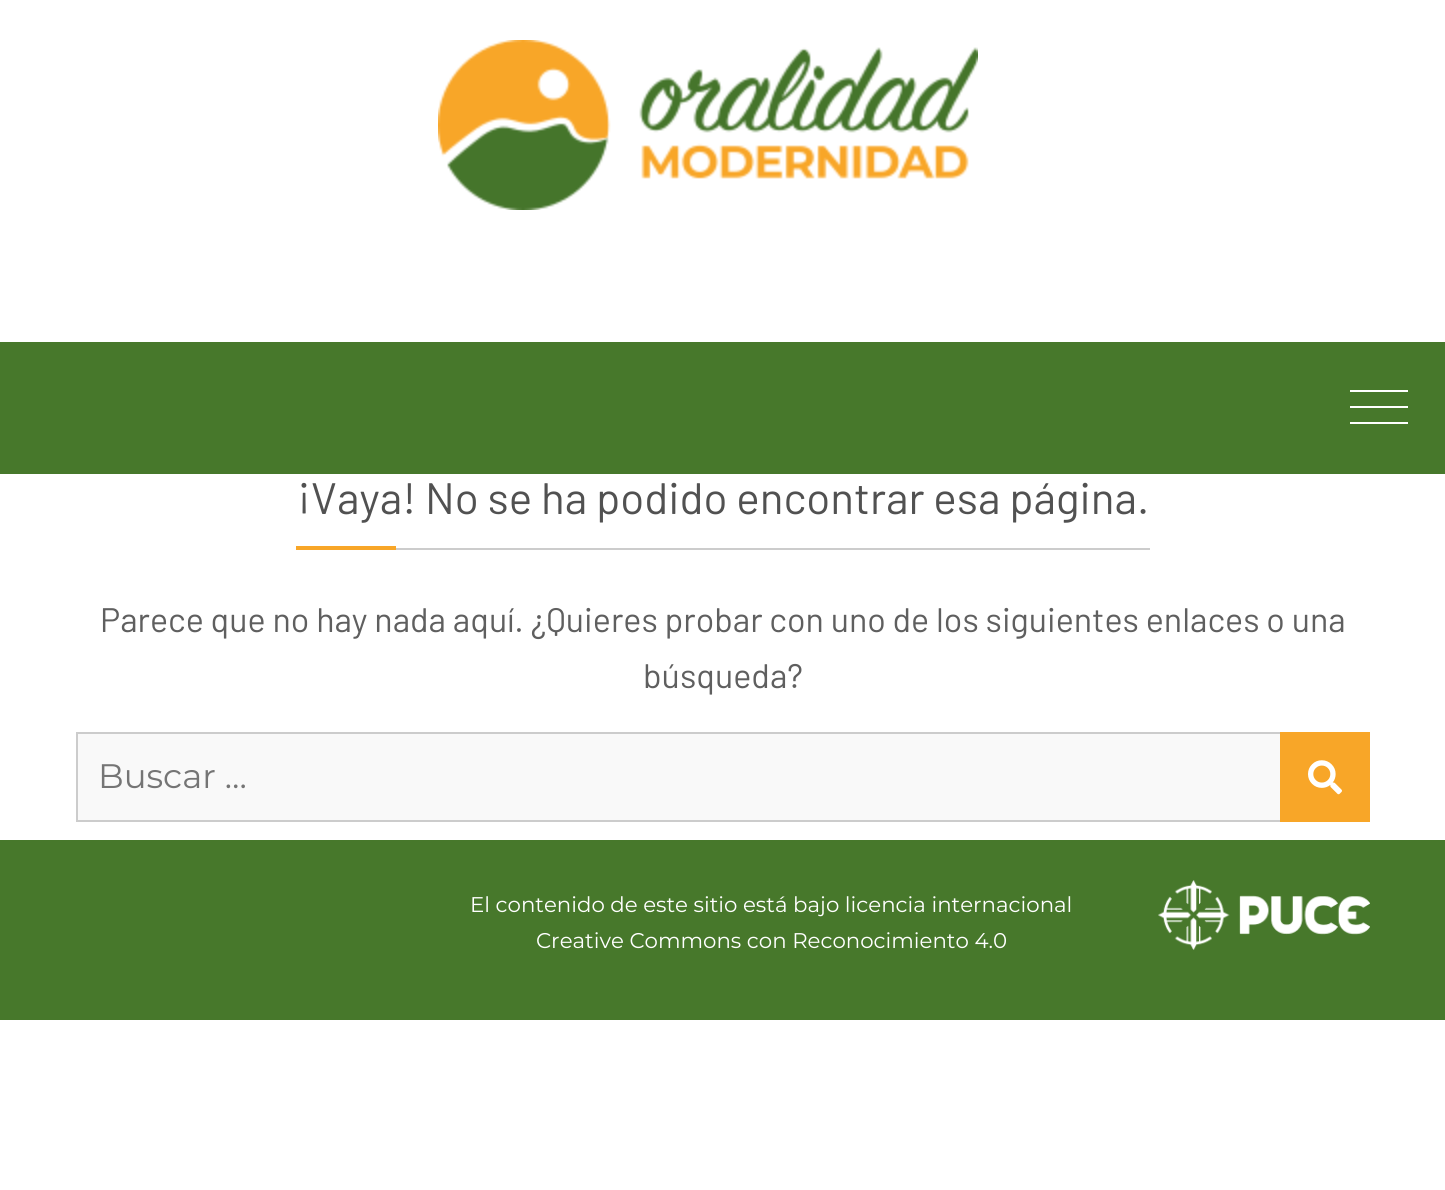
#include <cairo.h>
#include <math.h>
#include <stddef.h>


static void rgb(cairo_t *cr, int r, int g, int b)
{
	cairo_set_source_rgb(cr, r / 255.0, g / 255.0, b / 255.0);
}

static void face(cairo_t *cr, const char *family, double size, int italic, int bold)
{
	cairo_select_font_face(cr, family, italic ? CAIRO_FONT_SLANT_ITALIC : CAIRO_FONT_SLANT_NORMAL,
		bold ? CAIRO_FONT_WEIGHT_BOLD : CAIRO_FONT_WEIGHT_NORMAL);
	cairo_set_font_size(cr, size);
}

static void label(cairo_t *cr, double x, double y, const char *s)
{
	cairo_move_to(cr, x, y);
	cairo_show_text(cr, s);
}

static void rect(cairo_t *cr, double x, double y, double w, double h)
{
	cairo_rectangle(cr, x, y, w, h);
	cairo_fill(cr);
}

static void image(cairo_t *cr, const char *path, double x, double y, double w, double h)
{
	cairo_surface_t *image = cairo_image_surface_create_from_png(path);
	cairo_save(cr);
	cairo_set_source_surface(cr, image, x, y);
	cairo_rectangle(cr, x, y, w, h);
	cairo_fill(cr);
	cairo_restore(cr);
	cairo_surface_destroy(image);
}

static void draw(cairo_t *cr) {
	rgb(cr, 255, 255, 255);
	cairo_paint(cr);
	image(cr, "image0.png", 438, 40, 540, 170);
	rgb(cr, 71, 120, 43);
	rect(cr, 0, 342, 1445, 132);
	rgb(cr, 255, 255, 255);
	rect(cr, 1350, 390, 58, 2);
	rect(cr, 1350, 406, 58, 2);
	rect(cr, 1350, 422, 58, 2);
	rgb(cr, 204, 204, 204);
	rect(cr, 396, 548, 754, 2);
	face(cr, "Barlow", 44, 0, 0);
	rgb(cr, 81, 81, 81);
	label(cr, 297, 514, "¡Vaya! No se ha podido encontrar esa página.");
	rgb(cr, 248, 166, 40);
	rect(cr, 296, 546, 100, 4);
	face(cr, "Barlow", 34, 0, 0);
	rgb(cr, 95, 95, 95);
	label(cr, 100, 632, "Parece que no hay nada aquí. ¿Quieres probar con uno de los siguientes enlaces o una");
	label(cr, 643, 688, "búsqueda?");
	rgb(cr, 249, 249, 249);
	rect(cr, 78, 734, 1202, 86);
	cairo_rectangle(cr, 77, 733, 1292, 88);
	rgb(cr, 204, 204, 204);
	cairo_stroke(cr);
	face(cr, "Montserrat", 34, 0, 0);
	rgb(cr, 117, 117, 117);
	label(cr, 98, 788, "Buscar …");
	rgb(cr, 248, 166, 40);
	rect(cr, 1280, 732, 90, 90);
	image(cr, "image1.png", 1308, 760, 34, 35);
	rgb(cr, 71, 120, 43);
	rect(cr, 0, 840, 1445, 180);
	face(cr, "Montserrat", 21.3, 0, 0);
	rgb(cr, 255, 255, 255);
	label(cr, 470, 912, "El contenido de este sitio está bajo licencia internacional");
	label(cr, 536, 948, "Creative Commons con Reconocimiento 4.0");
	image(cr, "image2.png", 1158, 880, 212, 70);
}

int main(void) {
	cairo_surface_t *surface = cairo_image_surface_create(CAIRO_FORMAT_RGB24, 1445, 1190);
	cairo_t *cr = cairo_create(surface);
	cairo_font_options_t *options = cairo_font_options_create();
	cairo_font_options_set_hint_metrics(options, CAIRO_HINT_METRICS_OFF);
	cairo_font_options_set_hint_style(options, CAIRO_HINT_STYLE_NONE);
	cairo_set_font_options(cr, options);
	cairo_set_miter_limit(cr, 4);
	draw(cr);
	cairo_surface_write_to_png(surface, "render.png");
	cairo_font_options_destroy(options);
	cairo_destroy(cr);
	cairo_surface_destroy(surface);
	return 0;
}
